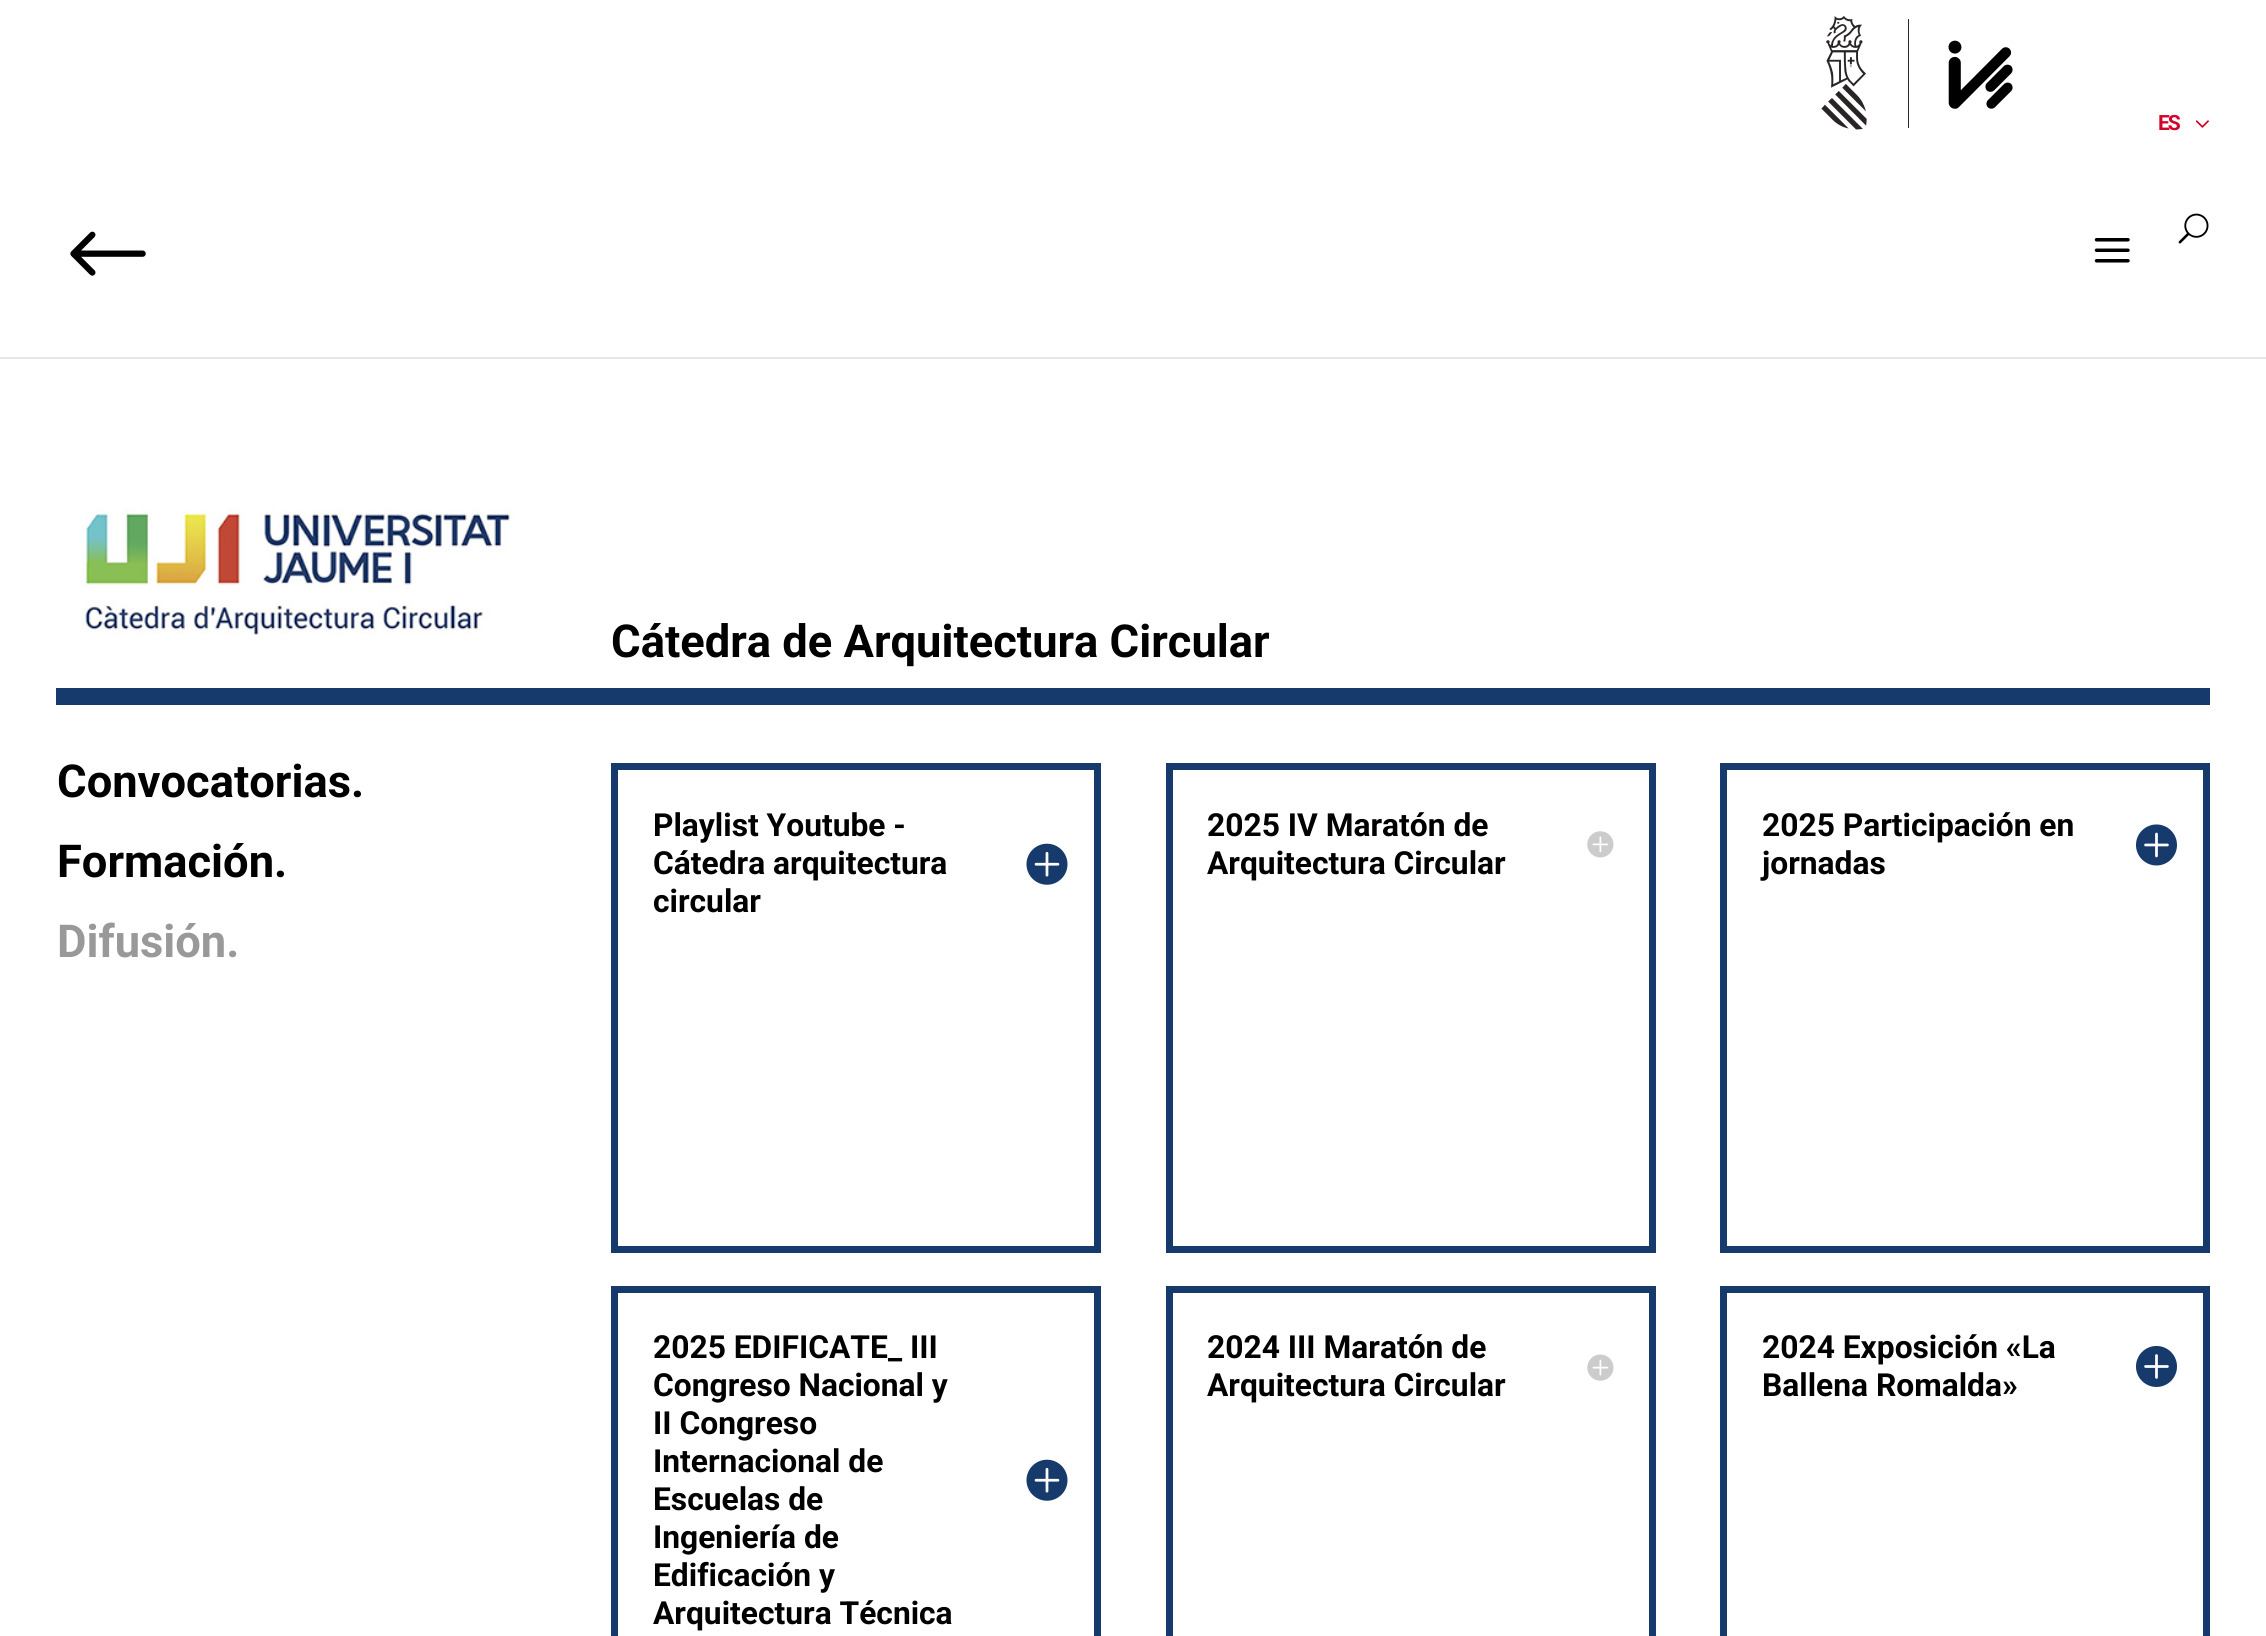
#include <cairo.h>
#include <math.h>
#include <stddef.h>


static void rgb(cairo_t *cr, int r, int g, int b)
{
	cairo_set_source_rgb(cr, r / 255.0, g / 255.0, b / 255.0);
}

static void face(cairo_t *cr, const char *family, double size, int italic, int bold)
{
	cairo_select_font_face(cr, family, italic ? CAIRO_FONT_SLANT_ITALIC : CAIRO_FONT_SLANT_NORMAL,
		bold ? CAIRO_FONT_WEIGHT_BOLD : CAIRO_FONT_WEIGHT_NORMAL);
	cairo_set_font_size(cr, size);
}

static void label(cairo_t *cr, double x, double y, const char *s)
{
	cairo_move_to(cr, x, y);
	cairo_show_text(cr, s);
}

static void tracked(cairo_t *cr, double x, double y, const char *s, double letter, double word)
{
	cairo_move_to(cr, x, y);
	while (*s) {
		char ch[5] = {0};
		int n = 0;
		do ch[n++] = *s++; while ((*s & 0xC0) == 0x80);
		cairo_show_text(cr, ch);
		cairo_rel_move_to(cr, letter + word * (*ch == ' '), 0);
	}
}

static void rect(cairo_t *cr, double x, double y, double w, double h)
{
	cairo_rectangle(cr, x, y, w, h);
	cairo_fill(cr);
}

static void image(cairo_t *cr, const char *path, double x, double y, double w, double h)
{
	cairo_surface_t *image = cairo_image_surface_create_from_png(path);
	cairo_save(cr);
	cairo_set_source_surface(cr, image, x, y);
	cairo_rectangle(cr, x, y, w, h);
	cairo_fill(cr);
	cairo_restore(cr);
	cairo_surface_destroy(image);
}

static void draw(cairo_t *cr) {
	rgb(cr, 255, 255, 255);
	cairo_paint(cr);
	image(cr, "image0.png", 1821, 16, 46, 114);
	image(cr, "image1.png", 1908, 19, 105, 109);
	face(cr, "Roboto", 21, 0, 1);
	rgb(cr, 209, 4, 41);
	tracked(cr, 2158, 130, "ES", -2, 0);
	image(cr, "image2.png", 2195, 120, 14, 8);
	rgb(cr, 230, 230, 230);
	rect(cr, 0, 357, 2266, 2);
	image(cr, "image3.png", 70, 231, 76, 45);
	image(cr, "image4.png", 2178, 213, 31, 31);
	image(cr, "image5.png", 2094, 238, 36, 25);
	rgb(cr, 22, 58, 107);
	rect(cr, 56, 688, 2154, 17);
	image(cr, "image6.png", 82, 508, 431, 127);
	face(cr, "Roboto", 45.3, 0, 1);
	rgb(cr, 0, 0, 0);
	label(cr, 611, 657, "Cátedra de Arquitectura Circular");
	label(cr, 57, 797, "Convocatorias.");
	label(cr, 57, 877, "Formación.");
	rgb(cr, 153, 153, 153);
	label(cr, 57, 957, "Difusión.");
	cairo_rectangle(cr, 614.5, 766.5, 483, 483);
	rgb(cr, 22, 58, 107);
	cairo_set_line_width(cr, 7);
	cairo_stroke(cr);
	face(cr, "Roboto", 31.75, 0, 1);
	rgb(cr, 0, 0, 0);
	label(cr, 653, 836, "Playlist Youtube -");
	label(cr, 653, 874, "Cátedra arquitectura");
	image(cr, "image7.png", 1026, 843, 42, 42);
	label(cr, 653, 912, "circular");
	cairo_rectangle(cr, 614.5, 1289.5, 483, 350);
	rgb(cr, 22, 58, 107);
	cairo_stroke(cr);
	rgb(cr, 0, 0, 0);
	label(cr, 653, 1358, "2025 EDIFICATE_ III");
	label(cr, 653, 1396, "Congreso Nacional y");
	label(cr, 653, 1434, "II Congreso");
	label(cr, 653, 1472, "Internacional de");
	image(cr, "image7.png", 1026, 1459, 42, 42);
	label(cr, 653, 1510, "Escuelas de");
	label(cr, 653, 1548, "Ingeniería de");
	label(cr, 653, 1586, "Edificación y");
	label(cr, 653, 1624, "Arquitectura Técnica");
	cairo_rectangle(cr, 1169.5, 766.5, 483, 483);
	rgb(cr, 22, 58, 107);
	cairo_stroke(cr);
	rgb(cr, 0, 0, 0);
	label(cr, 1207, 836, "2025 IV Maratón de");
	image(cr, "image8.png", 1587, 831, 27, 27);
	label(cr, 1207, 874, "Arquitectura Circular");
	cairo_rectangle(cr, 1169.5, 1289.5, 483, 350);
	rgb(cr, 22, 58, 107);
	cairo_stroke(cr);
	rgb(cr, 0, 0, 0);
	label(cr, 1207, 1358, "2024 III Maratón de");
	image(cr, "image9.png", 1587, 1354, 27, 27);
	label(cr, 1207, 1396, "Arquitectura Circular");
	cairo_rectangle(cr, 1723.5, 766.5, 483, 483);
	rgb(cr, 22, 58, 107);
	cairo_stroke(cr);
	rgb(cr, 0, 0, 0);
	label(cr, 1762, 836, "2025 Participación en");
	image(cr, "image10.png", 2136, 824, 41, 42);
	label(cr, 1762, 874, "jornadas");
	cairo_rectangle(cr, 1723.5, 1289.5, 483, 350);
	rgb(cr, 22, 58, 107);
	cairo_stroke(cr);
	rgb(cr, 0, 0, 0);
	label(cr, 1762, 1358, "2024 Exposición «La");
	image(cr, "image11.png", 2136, 1346, 41, 41);
	label(cr, 1762, 1396, "Ballena Romalda»");
}

int main(void) {
	cairo_surface_t *surface = cairo_image_surface_create(CAIRO_FORMAT_RGB24, 2266, 1636);
	cairo_t *cr = cairo_create(surface);
	cairo_font_options_t *options = cairo_font_options_create();
	cairo_font_options_set_hint_metrics(options, CAIRO_HINT_METRICS_OFF);
	cairo_font_options_set_hint_style(options, CAIRO_HINT_STYLE_NONE);
	cairo_set_font_options(cr, options);
	cairo_set_miter_limit(cr, 4);
	draw(cr);
	cairo_surface_write_to_png(surface, "render.png");
	cairo_font_options_destroy(options);
	cairo_destroy(cr);
	cairo_surface_destroy(surface);
	return 0;
}
